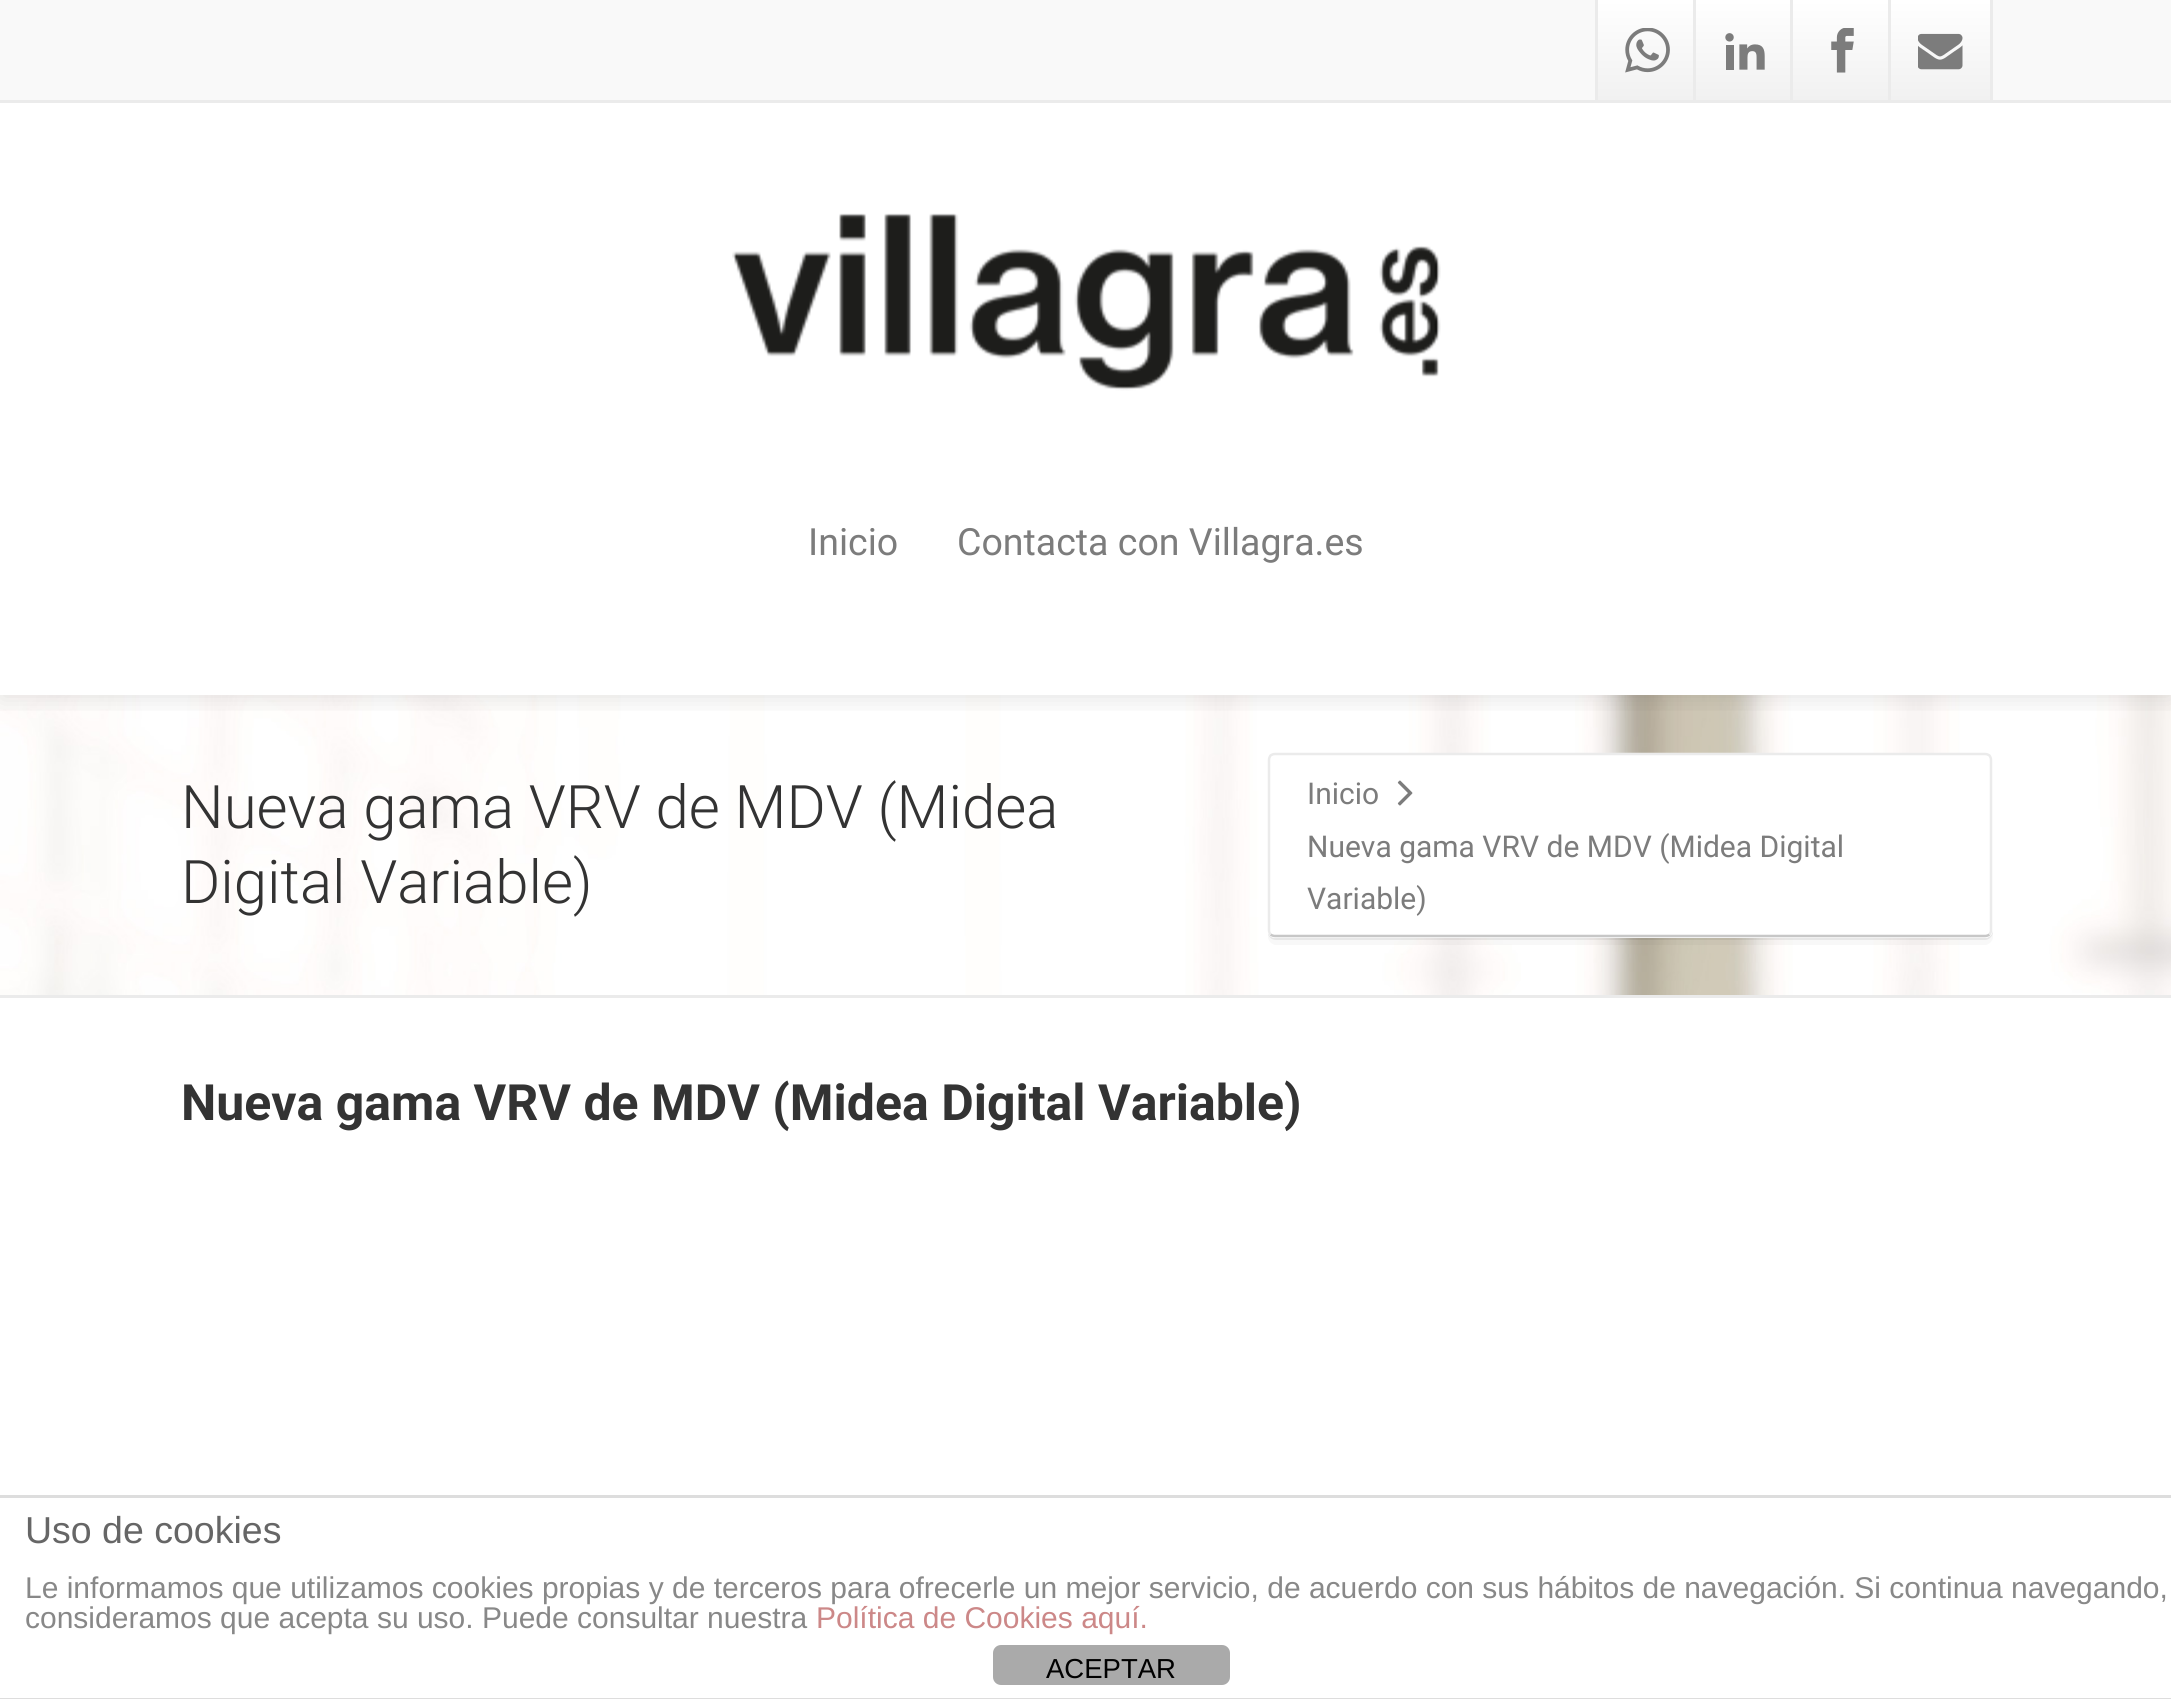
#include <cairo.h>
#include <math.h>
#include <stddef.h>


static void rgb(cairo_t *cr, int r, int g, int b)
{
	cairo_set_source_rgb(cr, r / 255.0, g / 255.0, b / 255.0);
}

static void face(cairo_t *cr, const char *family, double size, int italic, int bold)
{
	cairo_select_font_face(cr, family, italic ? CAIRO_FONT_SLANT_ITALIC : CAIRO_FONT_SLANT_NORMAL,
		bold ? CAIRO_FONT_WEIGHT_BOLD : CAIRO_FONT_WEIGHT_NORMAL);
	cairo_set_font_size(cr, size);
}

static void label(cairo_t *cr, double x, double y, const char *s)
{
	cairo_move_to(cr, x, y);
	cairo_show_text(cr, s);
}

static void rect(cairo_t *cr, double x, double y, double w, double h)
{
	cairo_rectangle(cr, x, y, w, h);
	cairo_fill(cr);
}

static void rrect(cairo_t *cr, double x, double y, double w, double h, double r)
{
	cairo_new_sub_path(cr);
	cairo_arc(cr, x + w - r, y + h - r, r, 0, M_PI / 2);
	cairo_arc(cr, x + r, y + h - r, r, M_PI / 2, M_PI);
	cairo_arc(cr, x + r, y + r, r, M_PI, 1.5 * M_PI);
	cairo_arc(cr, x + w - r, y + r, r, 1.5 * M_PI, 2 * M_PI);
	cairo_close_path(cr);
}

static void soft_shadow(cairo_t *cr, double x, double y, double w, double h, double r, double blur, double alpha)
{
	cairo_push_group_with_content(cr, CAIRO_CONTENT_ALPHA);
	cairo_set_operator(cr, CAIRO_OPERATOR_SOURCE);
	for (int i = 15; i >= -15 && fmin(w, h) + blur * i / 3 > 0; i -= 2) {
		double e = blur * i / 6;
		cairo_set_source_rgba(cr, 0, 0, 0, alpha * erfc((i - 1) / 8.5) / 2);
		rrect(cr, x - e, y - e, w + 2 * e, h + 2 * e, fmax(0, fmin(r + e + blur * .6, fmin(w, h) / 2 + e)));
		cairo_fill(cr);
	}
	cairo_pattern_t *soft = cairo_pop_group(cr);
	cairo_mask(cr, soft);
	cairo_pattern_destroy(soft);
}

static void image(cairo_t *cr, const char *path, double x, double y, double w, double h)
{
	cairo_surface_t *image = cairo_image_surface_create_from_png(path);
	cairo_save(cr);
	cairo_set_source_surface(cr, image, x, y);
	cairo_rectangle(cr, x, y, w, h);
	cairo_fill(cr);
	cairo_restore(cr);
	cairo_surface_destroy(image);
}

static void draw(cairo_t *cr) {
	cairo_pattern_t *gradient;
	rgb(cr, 255, 255, 255);
	cairo_paint(cr);
	image(cr, "image5.png", 0, 695, 2171, 300);
	cairo_save(cr);
	cairo_rectangle(cr, 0, 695, 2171, 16);
	cairo_clip(cr);
	rgb(cr, 0, 0, 0);
	soft_shadow(cr, 0, 108, 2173, 592, 0, 12.5, 0.1);
	cairo_restore(cr);
	rgb(cr, 249, 249, 249);
	rect(cr, 0, 0, 2171, 100);
	rgb(cr, 235, 235, 235);
	rect(cr, 0, 100, 2171, 3);
	gradient = cairo_pattern_create_linear(1648, 0, 1648, 100);
	cairo_pattern_add_color_stop_rgba(gradient, 0, 1, 1, 1, 1);
	cairo_pattern_add_color_stop_rgba(gradient, 1, 0.945, 0.945, 0.945, 1);
	cairo_set_source(cr, gradient);
	cairo_pattern_destroy(gradient);
	rect(cr, 1598, 0, 95, 100);
	rgb(cr, 235, 235, 235);
	rect(cr, 1595, 0, 3, 100);
	image(cr, "image0.png", 1625, 28, 45, 45);
	gradient = cairo_pattern_create_linear(1745, 0, 1745, 100);
	cairo_pattern_add_color_stop_rgba(gradient, 0, 1, 1, 1, 1);
	cairo_pattern_add_color_stop_rgba(gradient, 1, 0.945, 0.945, 0.945, 1);
	cairo_set_source(cr, gradient);
	cairo_pattern_destroy(gradient);
	rect(cr, 1696, 0, 94, 100);
	rgb(cr, 235, 235, 235);
	rect(cr, 1693, 0, 3, 100);
	image(cr, "image1.png", 1725, 33, 40, 37);
	gradient = cairo_pattern_create_linear(1843, 0, 1843, 100);
	cairo_pattern_add_color_stop_rgba(gradient, 0, 1, 1, 1, 1);
	cairo_pattern_add_color_stop_rgba(gradient, 1, 0.945, 0.945, 0.945, 1);
	cairo_set_source(cr, gradient);
	cairo_pattern_destroy(gradient);
	rect(cr, 1793, 0, 95, 100);
	rgb(cr, 235, 235, 235);
	rect(cr, 1790, 0, 3, 100);
	image(cr, "image2.png", 1831, 28, 23, 45);
	gradient = cairo_pattern_create_linear(1940, 0, 1940, 100);
	cairo_pattern_add_color_stop_rgba(gradient, 0, 1, 1, 1, 1);
	cairo_pattern_add_color_stop_rgba(gradient, 1, 0.945, 0.945, 0.945, 1);
	cairo_set_source(cr, gradient);
	cairo_pattern_destroy(gradient);
	rect(cr, 1891, 0, 99, 100);
	rgb(cr, 235, 235, 235);
	rect(cr, 1990, 0, 3, 100);
	rect(cr, 1888, 0, 3, 100);
	image(cr, "image3.png", 1918, 33, 45, 37);
	image(cr, "image4.png", 732, 213, 709, 178);
	face(cr, "Roboto", 37.5, 0, 0);
	rgb(cr, 124, 124, 124);
	label(cr, 808, 555, "Inicio");
	label(cr, 957, 555, "Contacta con Villagra.es");
	rgb(cr, 235, 235, 235);
	rect(cr, 0, 995, 2171, 3);
	face(cr, "Roboto Light", 60, 0, 0);
	rgb(cr, 51, 51, 51);
	label(cr, 181, 828, "Nueva gama VRV de MDV (Midea");
	label(cr, 181, 903, "Digital Variable)");
	cairo_set_source_rgba(cr, 0, 0, 0, 0.07);
	cairo_new_path(cr);
	cairo_move_to(cr, 1268, 933);
	cairo_curve_to(cr, 1268, 937, 1272, 940, 1276, 940);
	cairo_line_to(cr, 1985, 940);
	cairo_curve_to(cr, 1989, 940, 1993, 936, 1993, 932);
	cairo_line_to(cr, 1993, 763);
	cairo_line_to(cr, 1992, 760);
	cairo_line_to(cr, 1992, 930);
	cairo_curve_to(cr, 1992, 934, 1989, 938, 1985, 938);
	cairo_line_to(cr, 1275, 938);
	cairo_curve_to(cr, 1272, 938, 1269, 936, 1268, 933);
	cairo_close_path(cr);
	cairo_fill(cr);
	cairo_set_source_rgba(cr, 0, 0, 0, 0.03);
	cairo_new_path(cr);
	cairo_move_to(cr, 1268, 933);
	cairo_line_to(cr, 1268, 937);
	cairo_curve_to(cr, 1268, 941, 1272, 945, 1276, 945);
	cairo_line_to(cr, 1985, 945);
	cairo_curve_to(cr, 1989, 945, 1993, 941, 1993, 937);
	cairo_line_to(cr, 1993, 768);
	cairo_line_to(cr, 1992, 765);
	cairo_line_to(cr, 1992, 930);
	cairo_curve_to(cr, 1992, 934, 1989, 938, 1985, 938);
	cairo_line_to(cr, 1275, 938);
	cairo_curve_to(cr, 1272, 938, 1269, 936, 1268, 933);
	cairo_close_path(cr);
	cairo_fill(cr);
	rgb(cr, 255, 255, 255);
	rrect(cr, 1268, 753, 725, 185, 8);
	cairo_fill(cr);
	cairo_new_path(cr);
	cairo_move_to(cr, 1989.5, 934.5);
	cairo_curve_to(cr, 1988, 935.5, 1986.5, 936, 1985, 936);
	cairo_line_to(cr, 1275, 936);
	cairo_curve_to(cr, 1273.5, 936, 1272, 935.5, 1270.5, 934.5);
	rgb(cr, 199, 199, 199);
	cairo_set_line_width(cr, 2.5);
	cairo_stroke(cr);
	cairo_new_path(cr);
	cairo_move_to(cr, 1270.5, 934.5);
	cairo_curve_to(cr, 1269.5, 933, 1269, 931.5, 1269, 930);
	cairo_line_to(cr, 1269, 760);
	cairo_curve_to(cr, 1269, 758.5, 1269.5, 757, 1270.5, 755.5);
	cairo_curve_to(cr, 1272, 754.5, 1273.5, 754, 1275, 754);
	cairo_line_to(cr, 1985, 754);
	cairo_curve_to(cr, 1986.5, 754, 1988, 754.5, 1989.5, 755.5);
	cairo_curve_to(cr, 1990.5, 757, 1991, 758.5, 1991, 760);
	cairo_line_to(cr, 1991, 930);
	cairo_curve_to(cr, 1991, 931.5, 1990.5, 933, 1989.5, 934.5);
	rgb(cr, 235, 235, 235);
	cairo_stroke(cr);
	face(cr, "Roboto", 30, 0, 0);
	rgb(cr, 124, 124, 124);
	label(cr, 1307, 804, "Inicio");
	image(cr, "image6.png", 1397, 780, 16, 26);
	label(cr, 1307, 857, "Nueva gama VRV de MDV (Midea Digital");
	label(cr, 1307, 909, "Variable)");
	face(cr, "Roboto", 50, 0, 1);
	rgb(cr, 51, 51, 51);
	label(cr, 181, 1120, "Nueva gama VRV de MDV (Midea Digital Variable)");
	rgb(cr, 221, 221, 221);
	rect(cr, 0, 1495, 2171, 3);
	rect(cr, 0, 1698, 2171, 1);
	face(cr, "Liberation Sans", 37.5, 0, 0);
	rgb(cr, 102, 102, 102);
	label(cr, 25, 1543, "Uso de cookies");
	face(cr, "Liberation Sans", 30, 0, 0);
	rgb(cr, 136, 136, 136);
	label(cr, 25, 1598, "Le informamos que utilizamos cookies propias y de terceros para ofrecerle un mejor servicio, de acuerdo con sus hábitos de navegación. Si continua navegando,");
	label(cr, 25, 1628, "consideramos que acepta su uso. Puede consultar nuestra");
	rgb(cr, 204, 136, 136);
	label(cr, 816, 1628, "Política de Cookies aquí.");
	rgb(cr, 170, 170, 170);
	rrect(cr, 993, 1645, 237, 40, 8);
	cairo_fill(cr);
	face(cr, "Liberation Sans", 27.5, 0, 0);
	rgb(cr, 0, 0, 0);
	label(cr, 1046, 1678, "ACEPTAR");
}

int main(void) {
	cairo_surface_t *surface = cairo_image_surface_create(CAIRO_FORMAT_RGB24, 2171, 1699);
	cairo_t *cr = cairo_create(surface);
	cairo_font_options_t *options = cairo_font_options_create();
	cairo_font_options_set_hint_metrics(options, CAIRO_HINT_METRICS_OFF);
	cairo_font_options_set_hint_style(options, CAIRO_HINT_STYLE_NONE);
	cairo_set_font_options(cr, options);
	cairo_set_miter_limit(cr, 4);
	draw(cr);
	cairo_surface_write_to_png(surface, "render.png");
	cairo_font_options_destroy(options);
	cairo_destroy(cr);
	cairo_surface_destroy(surface);
	return 0;
}
